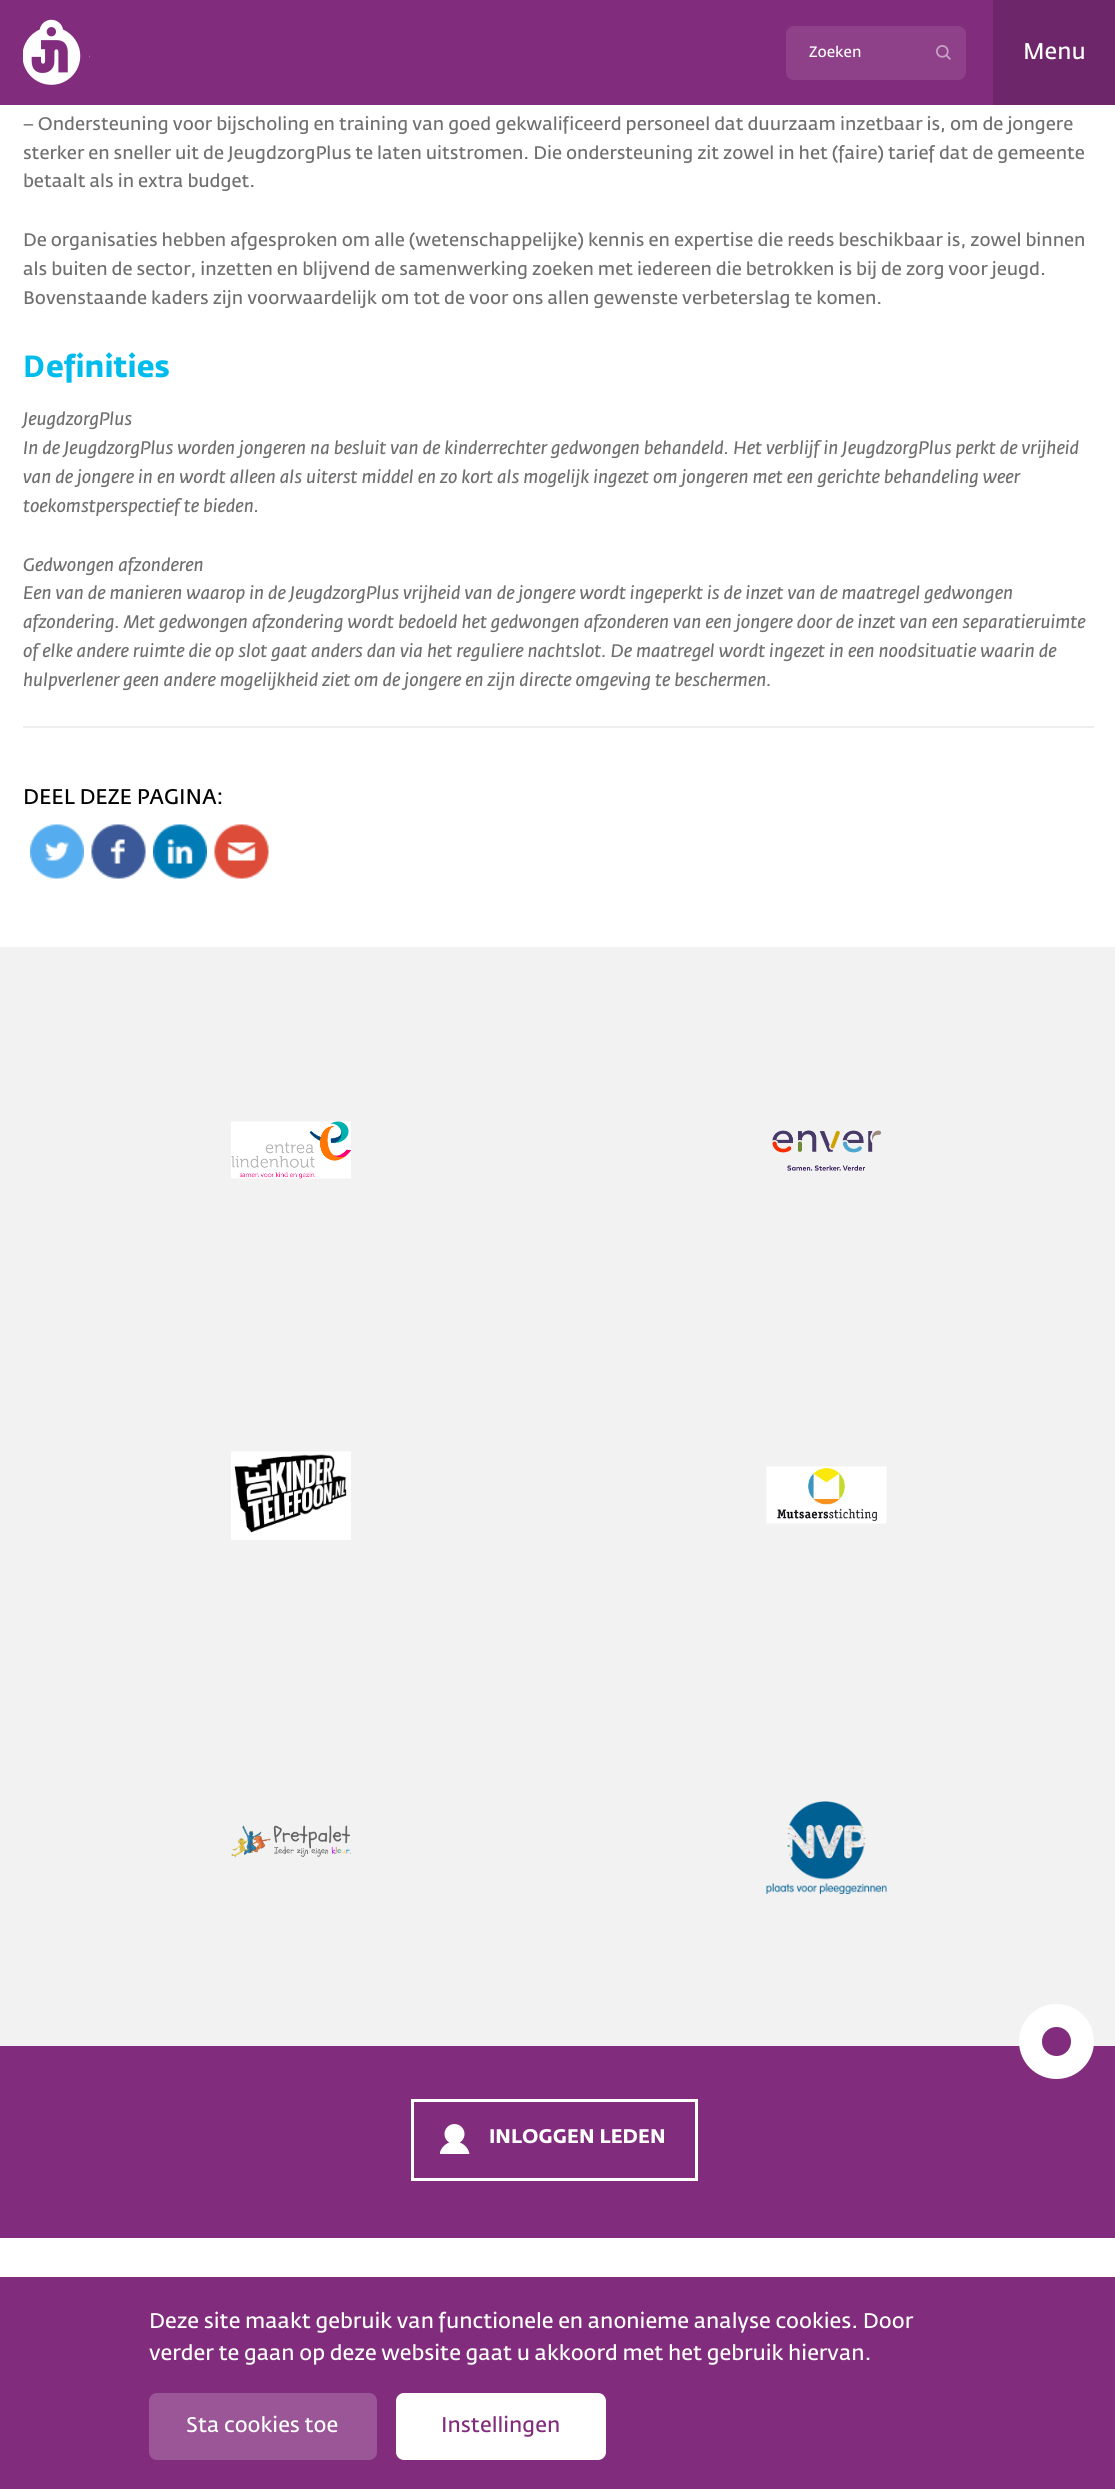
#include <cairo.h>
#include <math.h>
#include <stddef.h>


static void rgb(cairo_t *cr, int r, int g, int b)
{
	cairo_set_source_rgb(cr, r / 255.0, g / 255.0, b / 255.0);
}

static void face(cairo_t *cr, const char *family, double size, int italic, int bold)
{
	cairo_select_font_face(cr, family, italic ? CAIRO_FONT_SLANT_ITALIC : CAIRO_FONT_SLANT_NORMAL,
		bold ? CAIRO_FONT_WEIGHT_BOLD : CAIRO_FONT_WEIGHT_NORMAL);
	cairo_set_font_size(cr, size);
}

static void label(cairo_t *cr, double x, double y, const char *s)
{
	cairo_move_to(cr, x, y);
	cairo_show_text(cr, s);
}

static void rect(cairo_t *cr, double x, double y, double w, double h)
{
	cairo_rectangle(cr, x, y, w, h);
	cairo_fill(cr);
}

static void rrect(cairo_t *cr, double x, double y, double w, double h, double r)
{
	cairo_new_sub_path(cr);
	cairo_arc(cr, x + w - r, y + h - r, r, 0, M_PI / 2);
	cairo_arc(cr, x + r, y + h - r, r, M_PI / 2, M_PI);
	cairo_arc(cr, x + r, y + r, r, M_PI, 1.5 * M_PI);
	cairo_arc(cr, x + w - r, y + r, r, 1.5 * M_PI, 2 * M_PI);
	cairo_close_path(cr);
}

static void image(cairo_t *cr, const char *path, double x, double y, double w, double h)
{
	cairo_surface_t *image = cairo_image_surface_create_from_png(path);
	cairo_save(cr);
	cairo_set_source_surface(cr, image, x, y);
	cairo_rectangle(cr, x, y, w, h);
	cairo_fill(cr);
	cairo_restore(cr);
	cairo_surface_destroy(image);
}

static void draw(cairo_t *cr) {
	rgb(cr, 255, 255, 255);
	cairo_paint(cr);
	rgb(cr, 129, 44, 124);
	rect(cr, 0, 0, 993, 105);
	image(cr, "image0.png", 23, 19, 67, 66);
	rgb(cr, 142, 65, 137);
	rrect(cr, 786, 26, 180, 54, 8);
	cairo_fill(cr);
	face(cr, "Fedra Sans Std", 15, 0, 0);
	rgb(cr, 255, 255, 255);
	label(cr, 809, 57, "Zoeken");
	image(cr, "image1.png", 936, 45, 15, 15);
	rgb(cr, 110, 38, 106);
	rect(cr, 993, 0, 122, 105);
	face(cr, "Fedra Sans Std", 22.5, 0, 0);
	rgb(cr, 255, 255, 255);
	label(cr, 1023, 59, "Menu");
	face(cr, "Fedra Sans Std", 18, 0, 0);
	rgb(cr, 112, 111, 111);
	label(cr, 23, 130, "– Ondersteuning voor bijscholing en training van goed gekwalificeerd personeel dat duurzaam inzetbaar is, om de jongere");
	label(cr, 23, 159, "sterker en sneller uit de JeugdzorgPlus te laten uitstromen. Die ondersteuning zit zowel in het (faire) tarief dat de gemeente");
	label(cr, 23, 187, "betaalt als in extra budget.");
	label(cr, 23, 246, "De organisaties hebben afgesproken om alle (wetenschappelijke) kennis en expertise die reeds beschikbaar is, zowel binnen");
	label(cr, 23, 275, "als buiten de sector, inzetten en blijvend de samenwerking zoeken met iedereen die betrokken is bij de zorg voor jeugd.");
	label(cr, 23, 304, "Bovenstaande kaders zijn voorwaardelijk om tot de voor ons allen gewenste verbeterslag te komen.");
	face(cr, "Noto Sans", 30, 0, 1);
	rgb(cr, 0, 188, 237);
	label(cr, 23, 377, "D");
	face(cr, "Fedra Sans Std", 30, 0, 1);
	label(cr, 46, 377, "efinities");
	face(cr, "Fedra Sans Std", 18, 1, 0);
	rgb(cr, 112, 111, 111);
	label(cr, 23, 425, "JeugdzorgPlus");
	label(cr, 23, 454, "In de JeugdzorgPlus worden jongeren na besluit van de kinderrechter gedwongen behandeld. Het verblijf in JeugdzorgPlus perkt de vrijheid");
	label(cr, 23, 483, "van de jongere in en wordt alleen als uiterst middel en zo kort als mogelijk ingezet om jongeren met een gerichte behandeling weer");
	label(cr, 23, 512, "toekomstperspectief te bieden.");
	label(cr, 23, 571, "Gedwongen afzonderen");
	label(cr, 23, 599, "Een van de manieren waarop in de JeugdzorgPlus vrijheid van de jongere wordt ingeperkt is de inzet van de maatregel gedwongen");
	label(cr, 23, 628, "afzondering. Met gedwongen afzondering wordt bedoeld het gedwongen afzonderen van een jongere door de inzet van een separatieruimte");
	label(cr, 23, 657, "of elke andere ruimte die op slot gaat anders dan via het reguliere nachtslot. De maatregel wordt ingezet in een noodsituatie waarin de");
	label(cr, 23, 686, "hulpverlener geen andere mogelijkheid ziet om de jongere en zijn directe omgeving te beschermen.");
	rgb(cr, 238, 238, 238);
	rect(cr, 23, 726, 1071, 2);
	face(cr, "Fedra Sans Std", 21, 0, 0);
	rgb(cr, 0, 0, 0);
	label(cr, 23, 804, "DEEL DEZE PAGINA:");
	image(cr, "image2.png", 30, 824, 54, 55);
	image(cr, "image3.png", 91, 824, 55, 55);
	image(cr, "image4.png", 153, 824, 54, 55);
	image(cr, "image5.png", 214, 824, 55, 55);
	rgb(cr, 242, 242, 242);
	rect(cr, 0, 947, 1115, 1099);
	image(cr, "image6.png", 231, 1121, 120, 58);
	image(cr, "image7.png", 772, 1130, 110, 41);
	image(cr, "image8.png", 231, 1451, 120, 89);
	image(cr, "image9.png", 766, 1466, 121, 58);
	image(cr, "image10.png", 231, 1825, 120, 32);
	image(cr, "image11.png", 766, 1801, 121, 93);
	rgb(cr, 129, 44, 124);
	rect(cr, 0, 2046, 1115, 192);
	cairo_arc(cr, 1056.5, 2041.5, 26, 0, 2 * M_PI);
	cairo_fill_preserve(cr);
	rgb(cr, 255, 255, 255);
	cairo_set_line_width(cr, 23);
	cairo_stroke(cr);
	cairo_rectangle(cr, 412.5, 2100.5, 284, 79);
	cairo_set_line_width(cr, 3);
	cairo_stroke(cr);
	image(cr, "image12.png", 440, 2124, 30, 30);
	face(cr, "Fedra Sans Std", 19.5, 0, 1);
	label(cr, 489, 2143, "INLOGGEN LEDEN");
	rgb(cr, 129, 44, 124);
	rect(cr, 0, 2277, 1115, 212);
	face(cr, "Fedra Sans Std", 21, 0, 0);
	rgb(cr, 255, 255, 255);
	label(cr, 149, 2328, "Deze site maakt gebruik van functionele en anonieme analyse cookies. Door");
	label(cr, 149, 2360, "verder te gaan op deze website gaat u akkoord met het gebruik hiervan.");
	rgb(cr, 154, 86, 150);
	rrect(cr, 149, 2393, 228, 67, 8);
	cairo_fill(cr);
	rgb(cr, 255, 255, 255);
	label(cr, 186, 2432, "Sta cookies toe");
	rrect(cr, 396, 2393, 210, 67, 8);
	cairo_fill(cr);
	rgb(cr, 129, 44, 124);
	label(cr, 441, 2432, "Instellingen");
}

int main(void) {
	cairo_surface_t *surface = cairo_image_surface_create(CAIRO_FORMAT_RGB24, 1115, 2489);
	cairo_t *cr = cairo_create(surface);
	cairo_font_options_t *options = cairo_font_options_create();
	cairo_font_options_set_hint_metrics(options, CAIRO_HINT_METRICS_OFF);
	cairo_font_options_set_hint_style(options, CAIRO_HINT_STYLE_NONE);
	cairo_set_font_options(cr, options);
	cairo_set_miter_limit(cr, 4);
	draw(cr);
	cairo_surface_write_to_png(surface, "render.png");
	cairo_font_options_destroy(options);
	cairo_destroy(cr);
	cairo_surface_destroy(surface);
	return 0;
}
